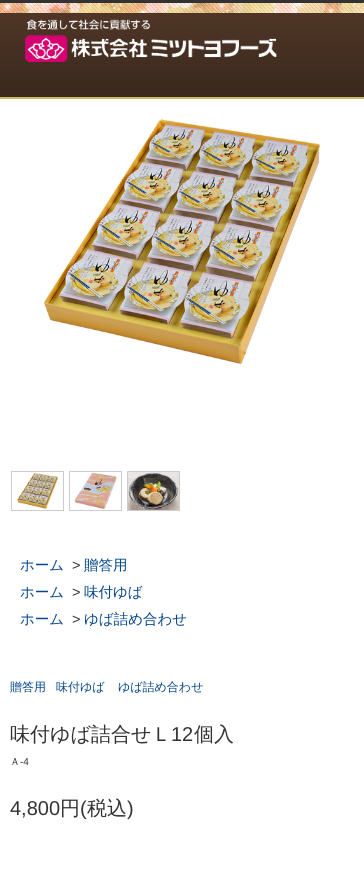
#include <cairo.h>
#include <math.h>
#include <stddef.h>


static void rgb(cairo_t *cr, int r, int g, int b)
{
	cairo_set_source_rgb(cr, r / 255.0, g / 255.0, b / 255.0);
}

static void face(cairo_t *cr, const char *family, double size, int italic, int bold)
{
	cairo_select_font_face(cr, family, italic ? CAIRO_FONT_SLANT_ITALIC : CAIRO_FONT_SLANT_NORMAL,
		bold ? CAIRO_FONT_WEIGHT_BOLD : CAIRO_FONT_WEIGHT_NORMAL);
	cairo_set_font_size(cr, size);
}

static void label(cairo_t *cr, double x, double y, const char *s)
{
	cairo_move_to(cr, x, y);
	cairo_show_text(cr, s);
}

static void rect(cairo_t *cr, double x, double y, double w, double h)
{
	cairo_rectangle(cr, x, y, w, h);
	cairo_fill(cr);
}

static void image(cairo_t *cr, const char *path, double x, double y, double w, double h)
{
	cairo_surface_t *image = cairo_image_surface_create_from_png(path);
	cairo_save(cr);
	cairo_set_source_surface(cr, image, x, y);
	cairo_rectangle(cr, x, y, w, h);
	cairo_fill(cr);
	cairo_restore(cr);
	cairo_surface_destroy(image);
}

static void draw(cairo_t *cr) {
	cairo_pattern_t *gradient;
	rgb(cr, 255, 255, 255);
	cairo_paint(cr);
	gradient = cairo_pattern_create_linear(182, 3, 182, 97);
	cairo_pattern_add_color_stop_rgba(gradient, 0, 0.322, 0.216, 0.153, 1);
	cairo_pattern_add_color_stop_rgba(gradient, 1, 0.224, 0.157, 0.118, 1);
	cairo_set_source(cr, gradient);
	cairo_pattern_destroy(gradient);
	rect(cr, 0, 13, 364, 84);
	rgb(cr, 51, 51, 51);
	rect(cr, 0, 0, 364, 3);
	rgb(cr, 206, 187, 96);
	rect(cr, 0, 97, 364, 2);
	image(cr, "image0.png", 0, 3, 364, 10);
	image(cr, "image1.png", 0, 3, 364, 10);
	image(cr, "image2.png", 25, 19, 252, 43);
	image(cr, "image3.png", 44, 119, 276, 245);
	cairo_rectangle(cr, 11.5, 471.5, 52, 39);
	rgb(cr, 204, 204, 204);
	cairo_set_line_width(cr, 1);
	cairo_stroke(cr);
	image(cr, "image4.png", 17, 472, 41, 37);
	cairo_rectangle(cr, 69.5, 471.5, 52, 39);
	cairo_stroke(cr);
	image(cr, "image5.png", 74, 472, 43, 38);
	cairo_rectangle(cr, 127.5, 471.5, 52, 39);
	cairo_stroke(cr);
	image(cr, "image6.png", 128, 472, 51, 38);
	face(cr, "WenQuanYi Zen Hei Medium", 14.5, 0, 0);
	rgb(cr, 6, 71, 139);
	label(cr, 20, 570, "ホーム");
	face(cr, "Liberation Sans", 14.5, 0, 0);
	rgb(cr, 51, 51, 51);
	label(cr, 72, 570, ">");
	face(cr, "WenQuanYi Zen Hei Medium", 14.5, 0, 0);
	rgb(cr, 6, 71, 139);
	label(cr, 84, 570, "贈答用");
	label(cr, 20, 597, "ホーム");
	face(cr, "Liberation Sans", 14.5, 0, 0);
	rgb(cr, 51, 51, 51);
	label(cr, 72, 597, ">");
	face(cr, "WenQuanYi Zen Hei Medium", 14.5, 0, 0);
	rgb(cr, 6, 71, 139);
	label(cr, 84, 597, "味付ゆば");
	label(cr, 20, 624, "ホーム");
	face(cr, "Liberation Sans", 14.5, 0, 0);
	rgb(cr, 51, 51, 51);
	label(cr, 72, 624, ">");
	face(cr, "WenQuanYi Zen Hei Medium", 14.5, 0, 0);
	rgb(cr, 6, 71, 139);
	label(cr, 84, 624, "ゆば詰め合わせ");
	face(cr, "WenQuanYi Zen Hei Medium", 12, 0, 0);
	label(cr, 10, 691, "贈答用");
	label(cr, 56, 691, "味付ゆば");
	label(cr, 118, 691, "ゆば詰め合わせ");
	face(cr, "WenQuanYi Zen Hei Medium", 20, 0, 0);
	rgb(cr, 51, 51, 51);
	label(cr, 10, 741, "味付ゆば詰合せＬ");
	face(cr, "Liberation Sans", 20, 0, 0);
	label(cr, 171, 741, "12");
	face(cr, "WenQuanYi Zen Hei Medium", 20, 0, 0);
	label(cr, 194, 741, "個入");
	face(cr, "WenQuanYi Zen Hei Medium", 10, 0, 0);
	label(cr, 10, 765, "Ａ");
	face(cr, "Liberation Sans", 10, 0, 0);
	label(cr, 20, 765, "-4");
	face(cr, "Liberation Sans", 20, 0, 0);
	label(cr, 10, 815, "4,800");
	face(cr, "WenQuanYi Zen Hei Medium", 20, 0, 0);
	label(cr, 60, 815, "円");
	face(cr, "Liberation Sans", 20, 0, 0);
	label(cr, 80, 815, "(");
	face(cr, "WenQuanYi Zen Hei Medium", 20, 0, 0);
	label(cr, 87, 815, "税込");
	face(cr, "Liberation Sans", 20, 0, 0);
	label(cr, 127, 815, ")");
}

int main(void) {
	cairo_surface_t *surface = cairo_image_surface_create(CAIRO_FORMAT_RGB24, 364, 885);
	cairo_t *cr = cairo_create(surface);
	cairo_font_options_t *options = cairo_font_options_create();
	cairo_font_options_set_hint_metrics(options, CAIRO_HINT_METRICS_OFF);
	cairo_font_options_set_hint_style(options, CAIRO_HINT_STYLE_NONE);
	cairo_set_font_options(cr, options);
	cairo_set_miter_limit(cr, 4);
	draw(cr);
	cairo_surface_write_to_png(surface, "render.png");
	cairo_font_options_destroy(options);
	cairo_destroy(cr);
	cairo_surface_destroy(surface);
	return 0;
}
